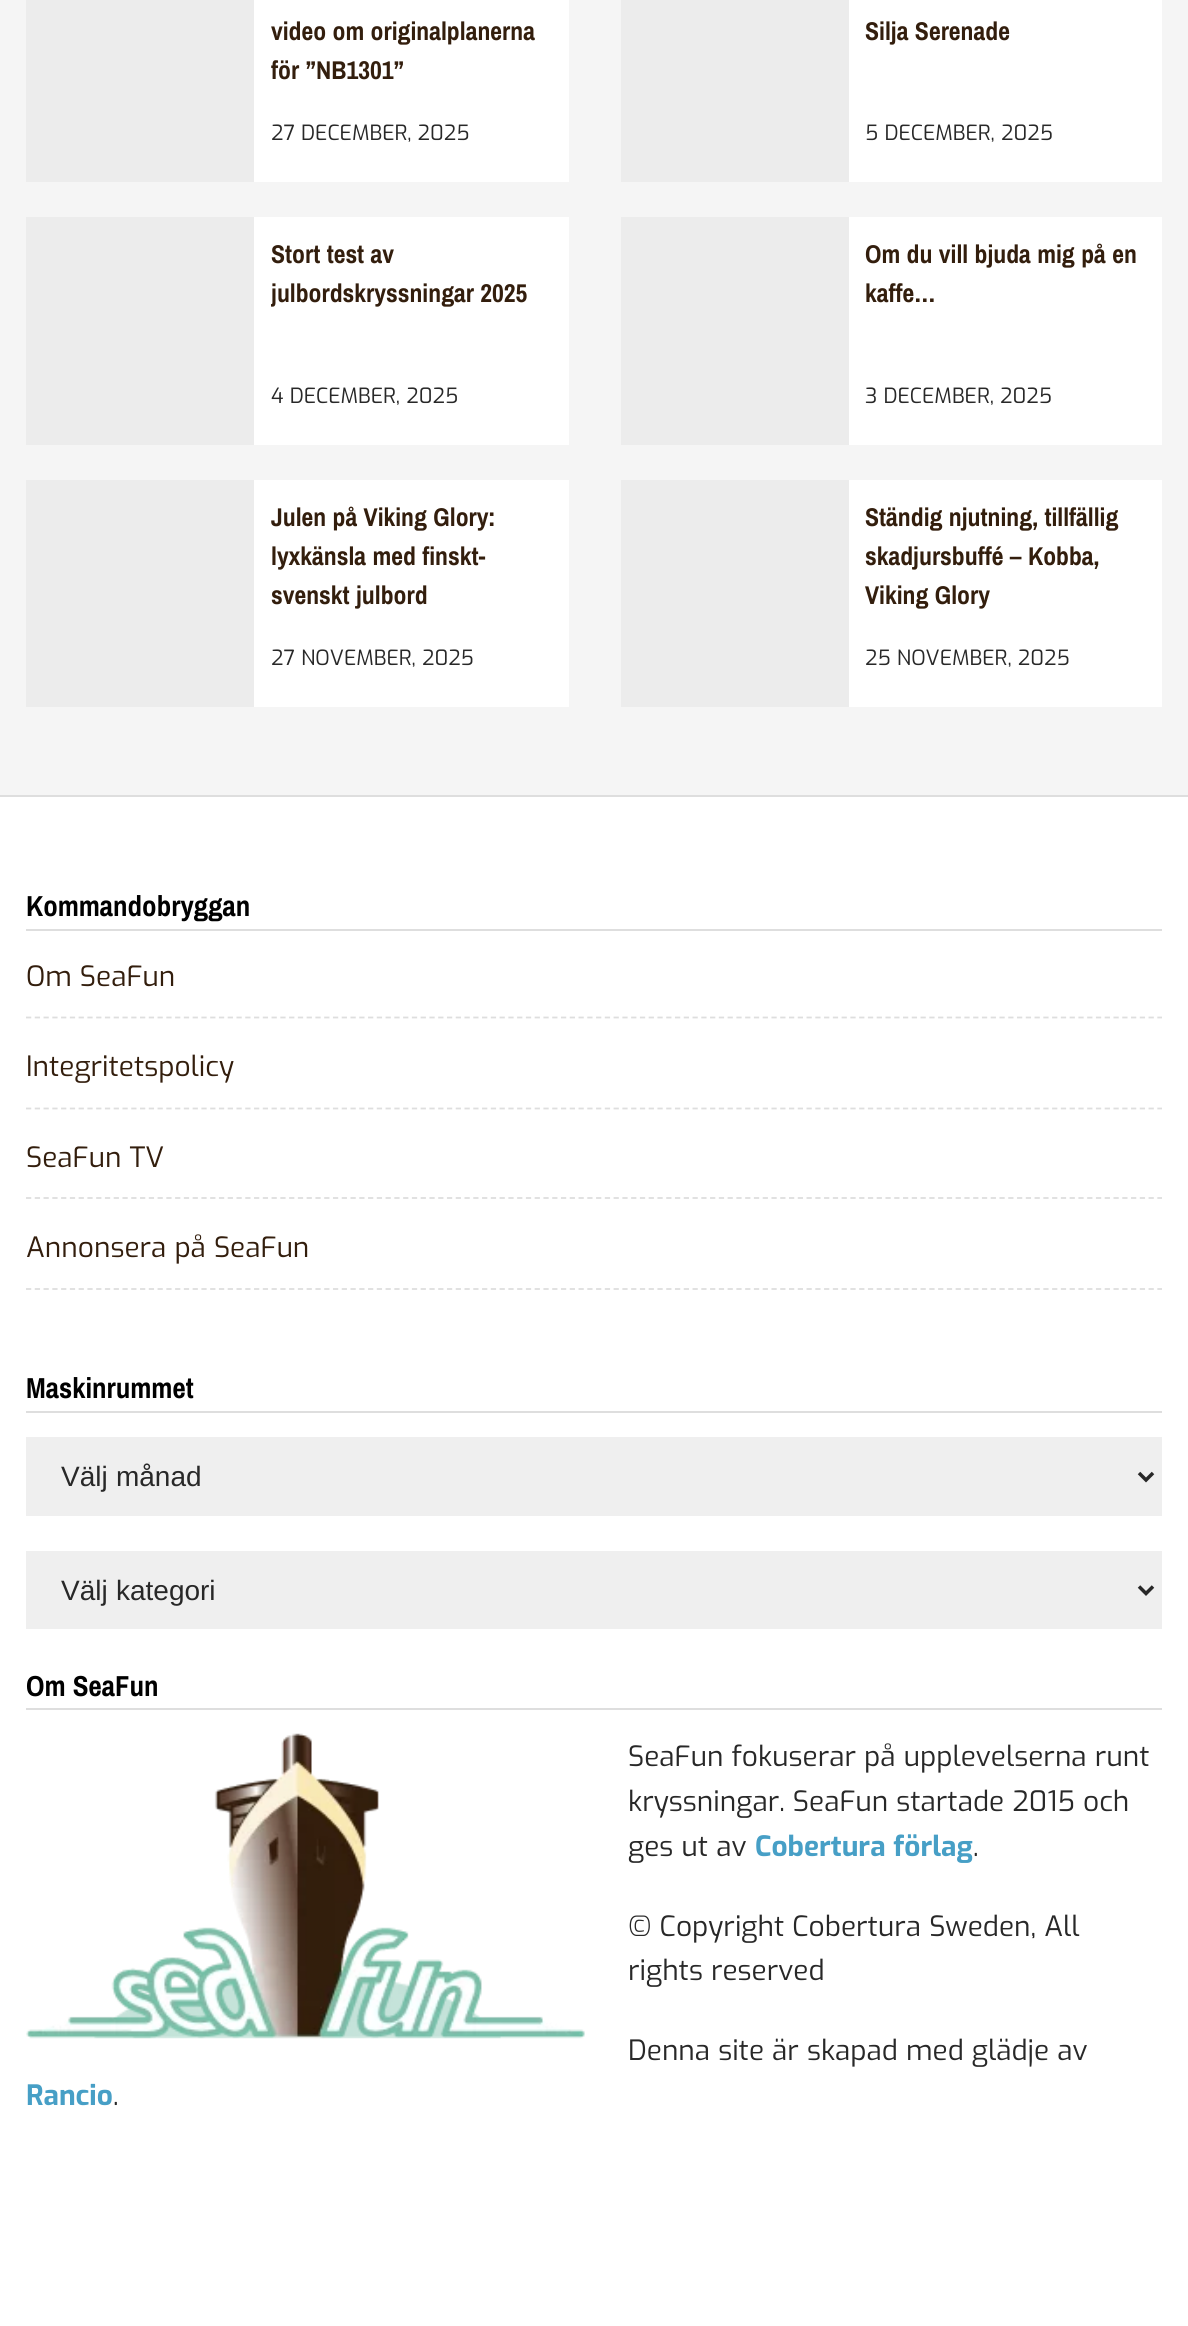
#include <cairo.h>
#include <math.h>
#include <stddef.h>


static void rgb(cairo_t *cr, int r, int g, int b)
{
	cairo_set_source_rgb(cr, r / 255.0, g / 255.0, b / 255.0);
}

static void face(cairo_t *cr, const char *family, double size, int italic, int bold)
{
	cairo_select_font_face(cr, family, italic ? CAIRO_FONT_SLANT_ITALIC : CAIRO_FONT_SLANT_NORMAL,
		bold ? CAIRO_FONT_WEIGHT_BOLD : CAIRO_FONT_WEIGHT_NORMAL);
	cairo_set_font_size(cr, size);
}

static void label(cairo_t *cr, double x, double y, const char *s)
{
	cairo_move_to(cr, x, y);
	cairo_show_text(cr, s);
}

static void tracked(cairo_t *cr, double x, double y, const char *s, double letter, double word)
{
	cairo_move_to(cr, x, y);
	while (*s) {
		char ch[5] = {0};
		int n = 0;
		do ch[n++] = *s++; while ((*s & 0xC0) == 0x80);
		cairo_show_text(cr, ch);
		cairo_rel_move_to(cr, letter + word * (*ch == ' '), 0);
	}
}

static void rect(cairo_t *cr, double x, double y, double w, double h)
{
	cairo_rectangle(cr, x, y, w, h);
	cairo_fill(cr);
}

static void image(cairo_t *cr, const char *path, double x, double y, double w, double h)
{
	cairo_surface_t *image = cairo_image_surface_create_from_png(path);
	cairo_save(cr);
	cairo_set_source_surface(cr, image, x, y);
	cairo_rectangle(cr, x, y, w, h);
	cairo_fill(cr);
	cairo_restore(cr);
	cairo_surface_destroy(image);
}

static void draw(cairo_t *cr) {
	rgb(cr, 245, 245, 245);
	cairo_paint(cr);
	rgb(cr, 255, 255, 255);
	rect(cr, 254, 0, 315, 182);
	rgb(cr, 236, 236, 236);
	rect(cr, 26, 0, 228, 182);
	face(cr, "Pragati Narrow", 28, 0, 1);
	rgb(cr, 51, 30, 13);
	tracked(cr, 271, 40, "video om originalplanerna", 0, 0.5);
	tracked(cr, 271, 79, "för ”NB1301”", 0, 0.5);
	face(cr, "Exo", 21, 0, 0);
	rgb(cr, 40, 40, 40);
	tracked(cr, 271, 140, "27 DECEMBER, 2025", 0, 0.5);
	rgb(cr, 255, 255, 255);
	rect(cr, 849, 0, 313, 182);
	rgb(cr, 236, 236, 236);
	rect(cr, 621, 0, 228, 182);
	face(cr, "Pragati Narrow", 28, 0, 1);
	rgb(cr, 51, 30, 13);
	tracked(cr, 865, 40, "Silja Serenade", 0, 0.5);
	face(cr, "Exo", 21, 0, 0);
	rgb(cr, 40, 40, 40);
	tracked(cr, 865, 140, "5 DECEMBER, 2025", 0, 0.5);
	rgb(cr, 255, 255, 255);
	rect(cr, 254, 217, 315, 228);
	rgb(cr, 236, 236, 236);
	rect(cr, 26, 217, 228, 228);
	face(cr, "Pragati Narrow", 28, 0, 1);
	rgb(cr, 51, 30, 13);
	tracked(cr, 271, 263, "Stort test av", 0, 0.5);
	cairo_save(cr);
	cairo_rectangle(cr, 271, 235, 280, 122);
	cairo_clip(cr);
	tracked(cr, 271, 302, "julbordskryssningar 2025", 0, 0.5);
	cairo_restore(cr);
	face(cr, "Exo", 21, 0, 0);
	rgb(cr, 40, 40, 40);
	tracked(cr, 271, 403, "4 DECEMBER, 2025", 0, 0.5);
	rgb(cr, 255, 255, 255);
	rect(cr, 849, 217, 313, 228);
	rgb(cr, 236, 236, 236);
	rect(cr, 621, 217, 228, 228);
	face(cr, "Pragati Narrow", 28, 0, 1);
	rgb(cr, 51, 30, 13);
	tracked(cr, 865, 263, "Om du vill bjuda mig på en", 0, 0.5);
	label(cr, 865, 302, "kaffe…");
	face(cr, "Exo", 21, 0, 0);
	rgb(cr, 40, 40, 40);
	tracked(cr, 865, 403, "3 DECEMBER, 2025", 0, 0.5);
	rgb(cr, 255, 255, 255);
	rect(cr, 254, 480, 315, 227);
	rgb(cr, 236, 236, 236);
	rect(cr, 26, 480, 228, 227);
	face(cr, "Pragati Narrow", 28, 0, 1);
	rgb(cr, 51, 30, 13);
	tracked(cr, 271, 526, "Julen på Viking Glory:", 0, 0.5);
	tracked(cr, 271, 565, "lyxkänsla med finskt-", 0, 0.5);
	tracked(cr, 271, 604, "svenskt julbord", 0, 0.5);
	face(cr, "Exo", 21, 0, 0);
	rgb(cr, 40, 40, 40);
	tracked(cr, 271, 665, "27 NOVEMBER, 2025", 0, 0.5);
	rgb(cr, 255, 255, 255);
	rect(cr, 849, 480, 313, 227);
	rgb(cr, 236, 236, 236);
	rect(cr, 621, 480, 228, 227);
	face(cr, "Pragati Narrow", 28, 0, 1);
	rgb(cr, 51, 30, 13);
	tracked(cr, 865, 526, "Ständig njutning, tillfällig", 0, 0.5);
	tracked(cr, 865, 565, "skadjursbuffé – Kobba,", 0, 0.5);
	tracked(cr, 865, 604, "Viking Glory", 0, 0.5);
	face(cr, "Exo", 21, 0, 0);
	rgb(cr, 40, 40, 40);
	tracked(cr, 865, 665, "25 NOVEMBER, 2025", 0, 0.5);
	rgb(cr, 255, 255, 255);
	rect(cr, 0, 797, 1188, 1529);
	rgb(cr, 222, 222, 222);
	rect(cr, 0, 795, 1188, 2);
	rect(cr, 26, 929, 1136, 2);
	face(cr, "Pragati Narrow", 31.5, 0, 1);
	rgb(cr, 0, 0, 0);
	label(cr, 26, 916, "Kommandobryggan");
	cairo_new_path(cr);
	cairo_move_to(cr, 26, 1017.5);
	cairo_line_to(cr, 1162, 1017.5);
	rgb(cr, 222, 222, 222);
	cairo_set_line_width(cr, 1.8);
	cairo_set_dash(cr, (double[]){5.25, 3.52}, 2, 0);
	cairo_stroke(cr);
	face(cr, "Exo", 28, 0, 0);
	rgb(cr, 51, 30, 13);
	tracked(cr, 26, 986, "Om SeaFun", 0, 0.5);
	cairo_new_path(cr);
	cairo_move_to(cr, 26, 1108.5);
	cairo_line_to(cr, 1162, 1108.5);
	rgb(cr, 222, 222, 222);
	cairo_stroke(cr);
	rgb(cr, 51, 30, 13);
	label(cr, 26, 1076, "Integritetspolicy");
	cairo_new_path(cr);
	cairo_move_to(cr, 26, 1198);
	cairo_line_to(cr, 1162, 1198);
	rgb(cr, 222, 222, 222);
	cairo_stroke(cr);
	rgb(cr, 51, 30, 13);
	tracked(cr, 26, 1167, "SeaFun TV", 0, 0.5);
	cairo_new_path(cr);
	cairo_move_to(cr, 26, 1289);
	cairo_line_to(cr, 1162, 1289);
	rgb(cr, 222, 222, 222);
	cairo_stroke(cr);
	rgb(cr, 51, 30, 13);
	tracked(cr, 26, 1257, "Annonsera på SeaFun", 0, 0.5);
	rgb(cr, 222, 222, 222);
	rect(cr, 26, 1411, 1136, 2);
	face(cr, "Pragati Narrow", 31.5, 0, 1);
	rgb(cr, 0, 0, 0);
	label(cr, 26, 1398, "Maskinrummet");
	rgb(cr, 239, 239, 239);
	rect(cr, 26, 1437, 1136, 79);
	cairo_new_path(cr);
	cairo_move_to(cr, 1139, 1473);
	cairo_line_to(cr, 1146, 1480);
	cairo_line_to(cr, 1153, 1473);
	rgb(cr, 40, 40, 40);
	cairo_set_line_width(cr, 3.5);
	cairo_set_dash(cr, NULL, 0, 0);
	cairo_stroke(cr);
	face(cr, "Liberation Sans", 28, 0, 0);
	tracked(cr, 61, 1486, "Välj månad", 0, 0.5);
	rgb(cr, 239, 239, 239);
	rect(cr, 26, 1551, 1136, 78);
	cairo_new_path(cr);
	cairo_move_to(cr, 1139, 1586.5);
	cairo_line_to(cr, 1146, 1593.5);
	cairo_line_to(cr, 1153, 1586.5);
	rgb(cr, 40, 40, 40);
	cairo_stroke(cr);
	tracked(cr, 61, 1600, "Välj kategori", 0, 0.5);
	rgb(cr, 222, 222, 222);
	rect(cr, 26, 1708, 1136, 2);
	face(cr, "Pragati Narrow", 31.5, 0, 1);
	rgb(cr, 0, 0, 0);
	tracked(cr, 26, 1696, "Om SeaFun", 0, 0.5);
	image(cr, "image0.png", 26, 1733, 559, 306);
	face(cr, "Exo", 28, 0, 0);
	rgb(cr, 40, 40, 40);
	tracked(cr, 628, 1766, "SeaFun fokuserar på upplevelserna runt", 0, 0.5);
	tracked(cr, 628, 1811, "kryssningar. SeaFun startade 2015 och", 0, 0.5);
	tracked(cr, 628, 1856, "ges ut av", 0, 0.5);
	face(cr, "Exo", 28, 0, 1);
	rgb(cr, 71, 159, 198);
	tracked(cr, 755, 1856, "Cobertura förlag", 0, 0.5);
	face(cr, "Exo", 28, 0, 0);
	rgb(cr, 40, 40, 40);
	label(cr, 973, 1856, ".");
	tracked(cr, 628, 1936, "© Copyright Cobertura Sweden, All", 0, 0.5);
	tracked(cr, 628, 1980, "rights reserved", 0, 0.5);
	tracked(cr, 628, 2060, "Denna site är skapad med glädje av", 0, 0.5);
	face(cr, "Exo", 28, 0, 1);
	rgb(cr, 71, 159, 198);
	label(cr, 26, 2105, "Rancio");
	face(cr, "Exo", 28, 0, 0);
	rgb(cr, 40, 40, 40);
	label(cr, 113, 2105, ".");
}

int main(void) {
	cairo_surface_t *surface = cairo_image_surface_create(CAIRO_FORMAT_RGB24, 1188, 2326);
	cairo_t *cr = cairo_create(surface);
	cairo_font_options_t *options = cairo_font_options_create();
	cairo_font_options_set_hint_metrics(options, CAIRO_HINT_METRICS_OFF);
	cairo_font_options_set_hint_style(options, CAIRO_HINT_STYLE_NONE);
	cairo_set_font_options(cr, options);
	cairo_set_miter_limit(cr, 4);
	draw(cr);
	cairo_surface_write_to_png(surface, "render.png");
	cairo_font_options_destroy(options);
	cairo_destroy(cr);
	cairo_surface_destroy(surface);
	return 0;
}
